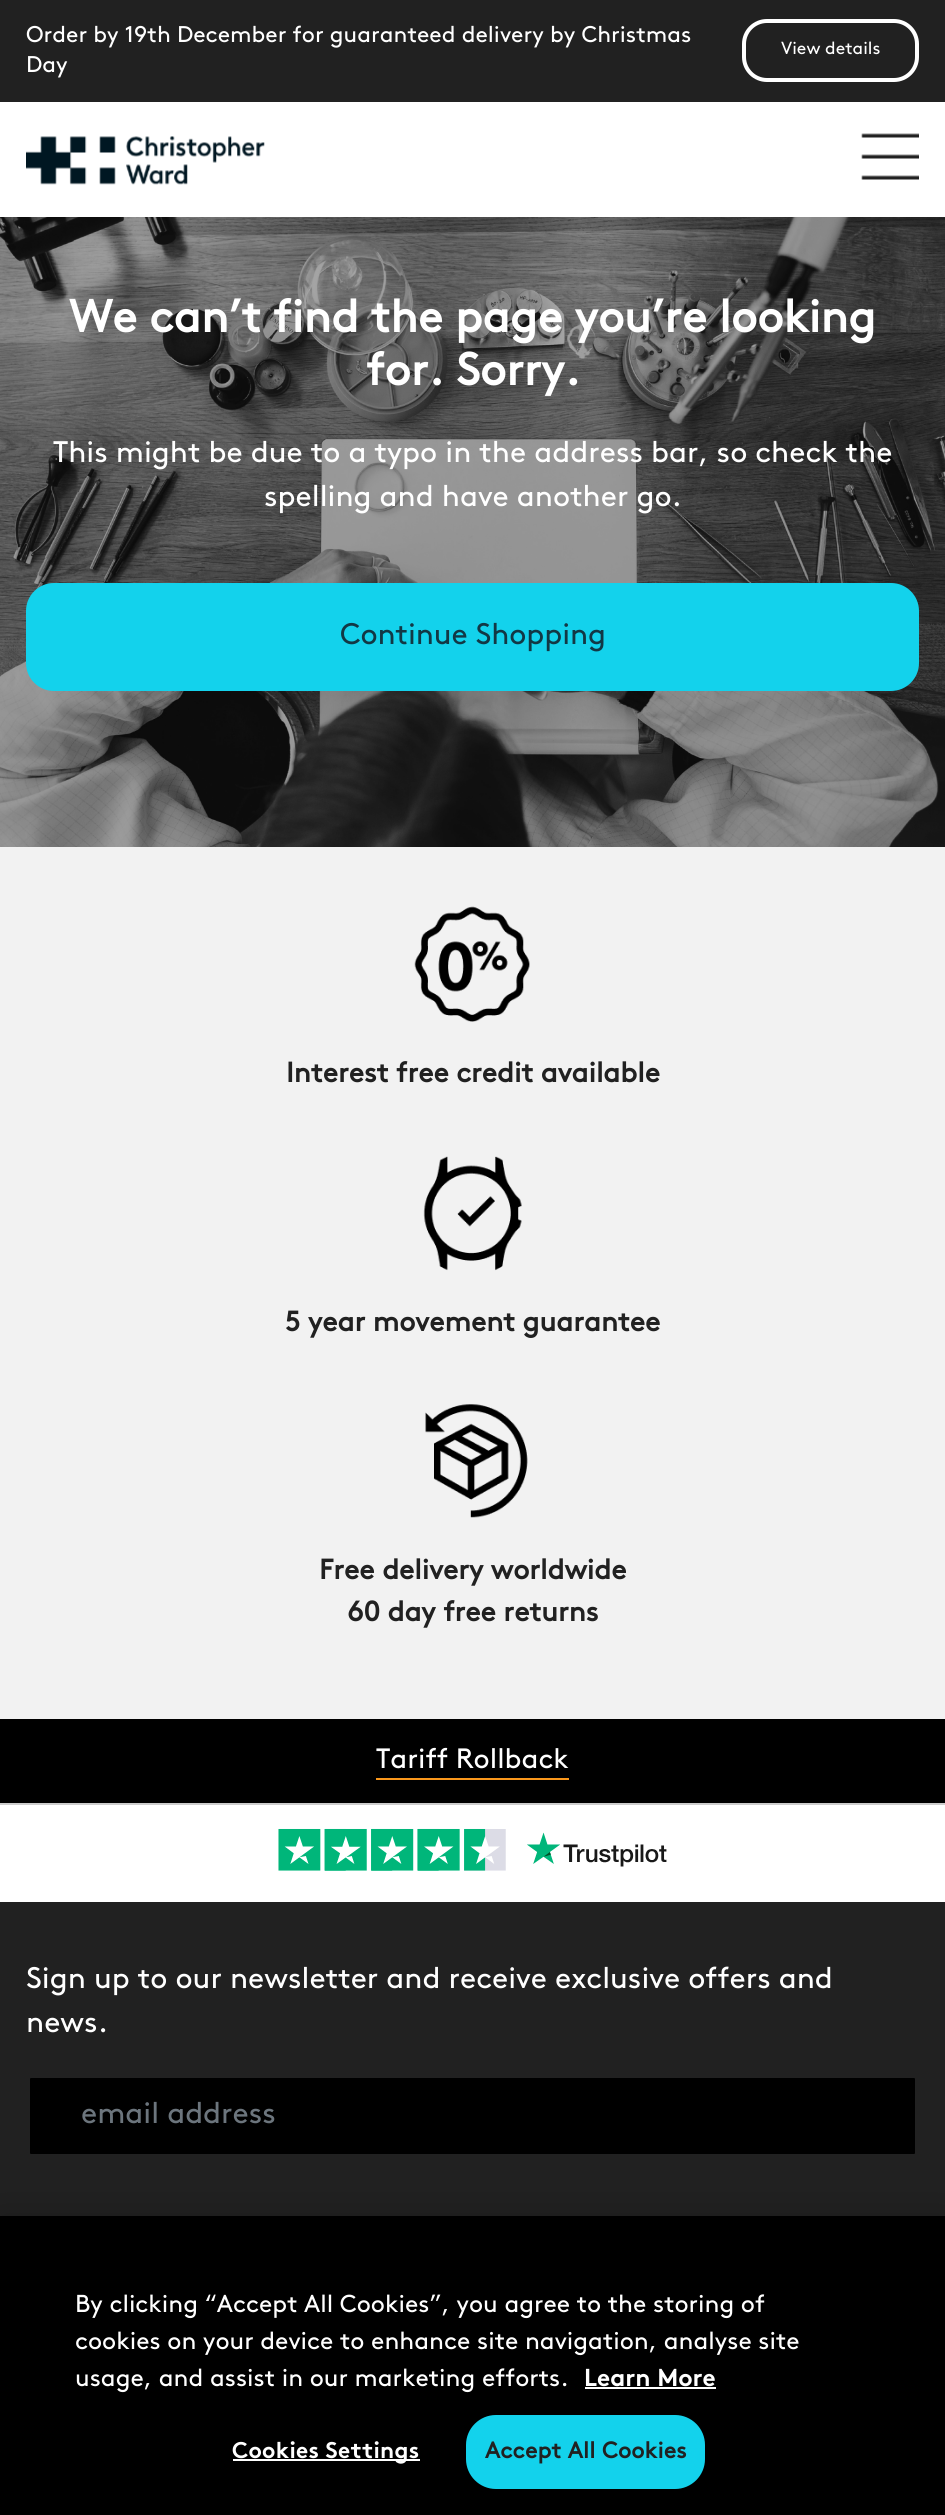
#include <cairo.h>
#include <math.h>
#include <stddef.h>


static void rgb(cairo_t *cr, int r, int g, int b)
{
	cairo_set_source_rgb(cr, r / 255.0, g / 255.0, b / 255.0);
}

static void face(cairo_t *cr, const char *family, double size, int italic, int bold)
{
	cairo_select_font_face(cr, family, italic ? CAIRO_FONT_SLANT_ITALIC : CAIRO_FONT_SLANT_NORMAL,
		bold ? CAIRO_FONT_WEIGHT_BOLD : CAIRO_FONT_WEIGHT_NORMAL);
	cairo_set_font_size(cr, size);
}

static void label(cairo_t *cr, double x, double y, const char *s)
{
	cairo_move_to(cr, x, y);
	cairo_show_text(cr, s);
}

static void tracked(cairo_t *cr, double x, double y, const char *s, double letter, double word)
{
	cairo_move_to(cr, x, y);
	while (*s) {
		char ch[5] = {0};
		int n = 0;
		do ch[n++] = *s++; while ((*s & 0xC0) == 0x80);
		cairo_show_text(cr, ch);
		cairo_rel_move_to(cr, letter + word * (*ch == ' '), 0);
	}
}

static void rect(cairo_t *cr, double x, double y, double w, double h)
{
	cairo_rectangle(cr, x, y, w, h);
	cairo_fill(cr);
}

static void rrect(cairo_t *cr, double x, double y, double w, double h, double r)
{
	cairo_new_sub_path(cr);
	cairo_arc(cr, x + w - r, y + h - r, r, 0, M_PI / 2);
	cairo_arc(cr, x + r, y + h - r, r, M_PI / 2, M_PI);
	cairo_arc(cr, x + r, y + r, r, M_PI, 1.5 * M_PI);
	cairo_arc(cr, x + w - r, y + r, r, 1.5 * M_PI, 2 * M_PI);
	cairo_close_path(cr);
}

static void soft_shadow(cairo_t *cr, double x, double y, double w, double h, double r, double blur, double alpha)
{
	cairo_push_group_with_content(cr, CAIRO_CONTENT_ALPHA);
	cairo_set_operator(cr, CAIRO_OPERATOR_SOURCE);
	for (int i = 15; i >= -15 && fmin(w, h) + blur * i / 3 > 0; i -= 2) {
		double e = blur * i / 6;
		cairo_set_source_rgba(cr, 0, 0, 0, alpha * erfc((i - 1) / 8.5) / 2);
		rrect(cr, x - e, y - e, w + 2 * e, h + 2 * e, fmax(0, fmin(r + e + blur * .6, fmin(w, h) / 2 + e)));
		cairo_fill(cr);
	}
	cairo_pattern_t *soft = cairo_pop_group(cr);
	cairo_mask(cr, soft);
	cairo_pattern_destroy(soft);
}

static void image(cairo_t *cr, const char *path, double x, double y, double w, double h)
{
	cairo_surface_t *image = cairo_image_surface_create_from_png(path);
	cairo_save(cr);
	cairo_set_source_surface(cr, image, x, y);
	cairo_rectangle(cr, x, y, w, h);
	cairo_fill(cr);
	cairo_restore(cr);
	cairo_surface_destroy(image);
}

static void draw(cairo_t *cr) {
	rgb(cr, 255, 255, 255);
	cairo_paint(cr);
	rgb(cr, 33, 33, 33);
	rect(cr, 0, 0, 945, 102);
	face(cr, "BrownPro", 22.75, 0, 0);
	rgb(cr, 255, 255, 255);
	label(cr, 26, 42, "Order by 19th December for guaranteed delivery by Christmas");
	label(cr, 26, 72, "Day");
	rrect(cr, 744, 21, 173, 59, 23);
	cairo_set_line_width(cr, 4);
	cairo_stroke(cr);
	face(cr, "BrownPro", 17.5, 0, 0);
	label(cr, 781, 54, "View details");
	image(cr, "image0.png", 26, 136, 239, 49);
	image(cr, "image1.png", 861, 133, 58, 47);
	image(cr, "image2.png", 0, 217, 945, 630);
	face(cr, "BrownPro", 45.5, 0, 1);
	label(cr, 69, 332, "We can’t find the page you’re looking");
	label(cr, 366, 385, "for. Sorry.");
	face(cr, "BrownPro", 29.75, 0, 0);
	label(cr, 53, 462, "This might be due to a typo in the address bar, so check the");
	label(cr, 264, 506, "spelling and have another go.");
	rgb(cr, 19, 210, 236);
	rrect(cr, 26, 583, 893, 108, 28);
	cairo_fill(cr);
	rgb(cr, 18, 56, 69);
	tracked(cr, 340, 644, "Continue Shopping", -0.1, 0);
	rgb(cr, 242, 242, 242);
	rect(cr, 0, 847, 945, 872);
	image(cr, "image3.png", 414, 906, 116, 116);
	face(cr, "BrownPro", 28, 0, 1);
	rgb(cr, 33, 33, 33);
	label(cr, 286, 1082, "Interest free credit available");
	image(cr, "image4.png", 423, 1156, 99, 115);
	label(cr, 285, 1331, "5 year movement guarantee");
	image(cr, "image5.png", 425, 1404, 103, 114);
	label(cr, 319, 1579, "Free delivery worldwide");
	label(cr, 347, 1621, "60 day free returns");
	rgb(cr, 0, 0, 0);
	rect(cr, 0, 1719, 945, 84);
	face(cr, "BrownPro", 28, 0, 0);
	rgb(cr, 255, 255, 255);
	label(cr, 376, 1768, "Tariff Rollback");
	rgb(cr, 251, 152, 28);
	rect(cr, 376, 1778, 193, 2);
	rgb(cr, 205, 205, 205);
	rect(cr, 0, 1803, 945, 2);
	image(cr, "image6.png", 278, 1828, 389, 43);
	rgb(cr, 33, 33, 33);
	rect(cr, 0, 1902, 945, 314);
	face(cr, "BrownPro", 29.75, 0, 0);
	rgb(cr, 255, 255, 255);
	label(cr, 26, 1988, "Sign up to our newsletter and receive exclusive offers and");
	label(cr, 26, 2032, "news.");
	rgb(cr, 0, 0, 0);
	rrect(cr, 28, 2076, 889, 80, 3);
	cairo_fill_preserve(cr);
	rgb(cr, 33, 33, 33);
	cairo_stroke(cr);
	rgb(cr, 108, 117, 125);
	label(cr, 81, 2123, "email address");
	rgb(cr, 0, 0, 0);
	soft_shadow(cr, 0, 2216, 945, 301, 0, 16, 0.2);
	rgb(cr, 0, 0, 0);
	rect(cr, 0, 2216, 945, 299);
	face(cr, "BrownPro", 24.5, 0, 0);
	rgb(cr, 255, 255, 255);
	label(cr, 75, 2312, "By clicking “Accept All Cookies”, you agree to the storing of");
	label(cr, 75, 2349, "cookies on your device to enhance site navigation, analyse site");
	label(cr, 75, 2386, "usage, and assist in our marketing efforts.");
	face(cr, "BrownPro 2", 24.5, 0, 1);
	label(cr, 584, 2386, "Learn More");
	rect(cr, 585, 2387, 131, 2);
	rect(cr, 233, 2459, 187, 2);
	face(cr, "BrownPro 2", 22.75, 0, 1);
	tracked(cr, 232, 2458, "Cookies Settings", 0.25, 0);
	rgb(cr, 19, 210, 236);
	rrect(cr, 467, 2416, 237, 72, 29);
	cairo_fill_preserve(cr);
	cairo_set_line_width(cr, 2);
	cairo_stroke(cr);
	face(cr, "BrownPro", 22.75, 0, 1);
	rgb(cr, 33, 33, 33);
	tracked(cr, 485, 2458, "Accept All Cookies", 0.25, 0);
}

int main(void) {
	cairo_surface_t *surface = cairo_image_surface_create(CAIRO_FORMAT_RGB24, 945, 2515);
	cairo_t *cr = cairo_create(surface);
	cairo_font_options_t *options = cairo_font_options_create();
	cairo_font_options_set_hint_metrics(options, CAIRO_HINT_METRICS_OFF);
	cairo_font_options_set_hint_style(options, CAIRO_HINT_STYLE_NONE);
	cairo_set_font_options(cr, options);
	cairo_set_miter_limit(cr, 4);
	draw(cr);
	cairo_surface_write_to_png(surface, "render.png");
	cairo_font_options_destroy(options);
	cairo_destroy(cr);
	cairo_surface_destroy(surface);
	return 0;
}
